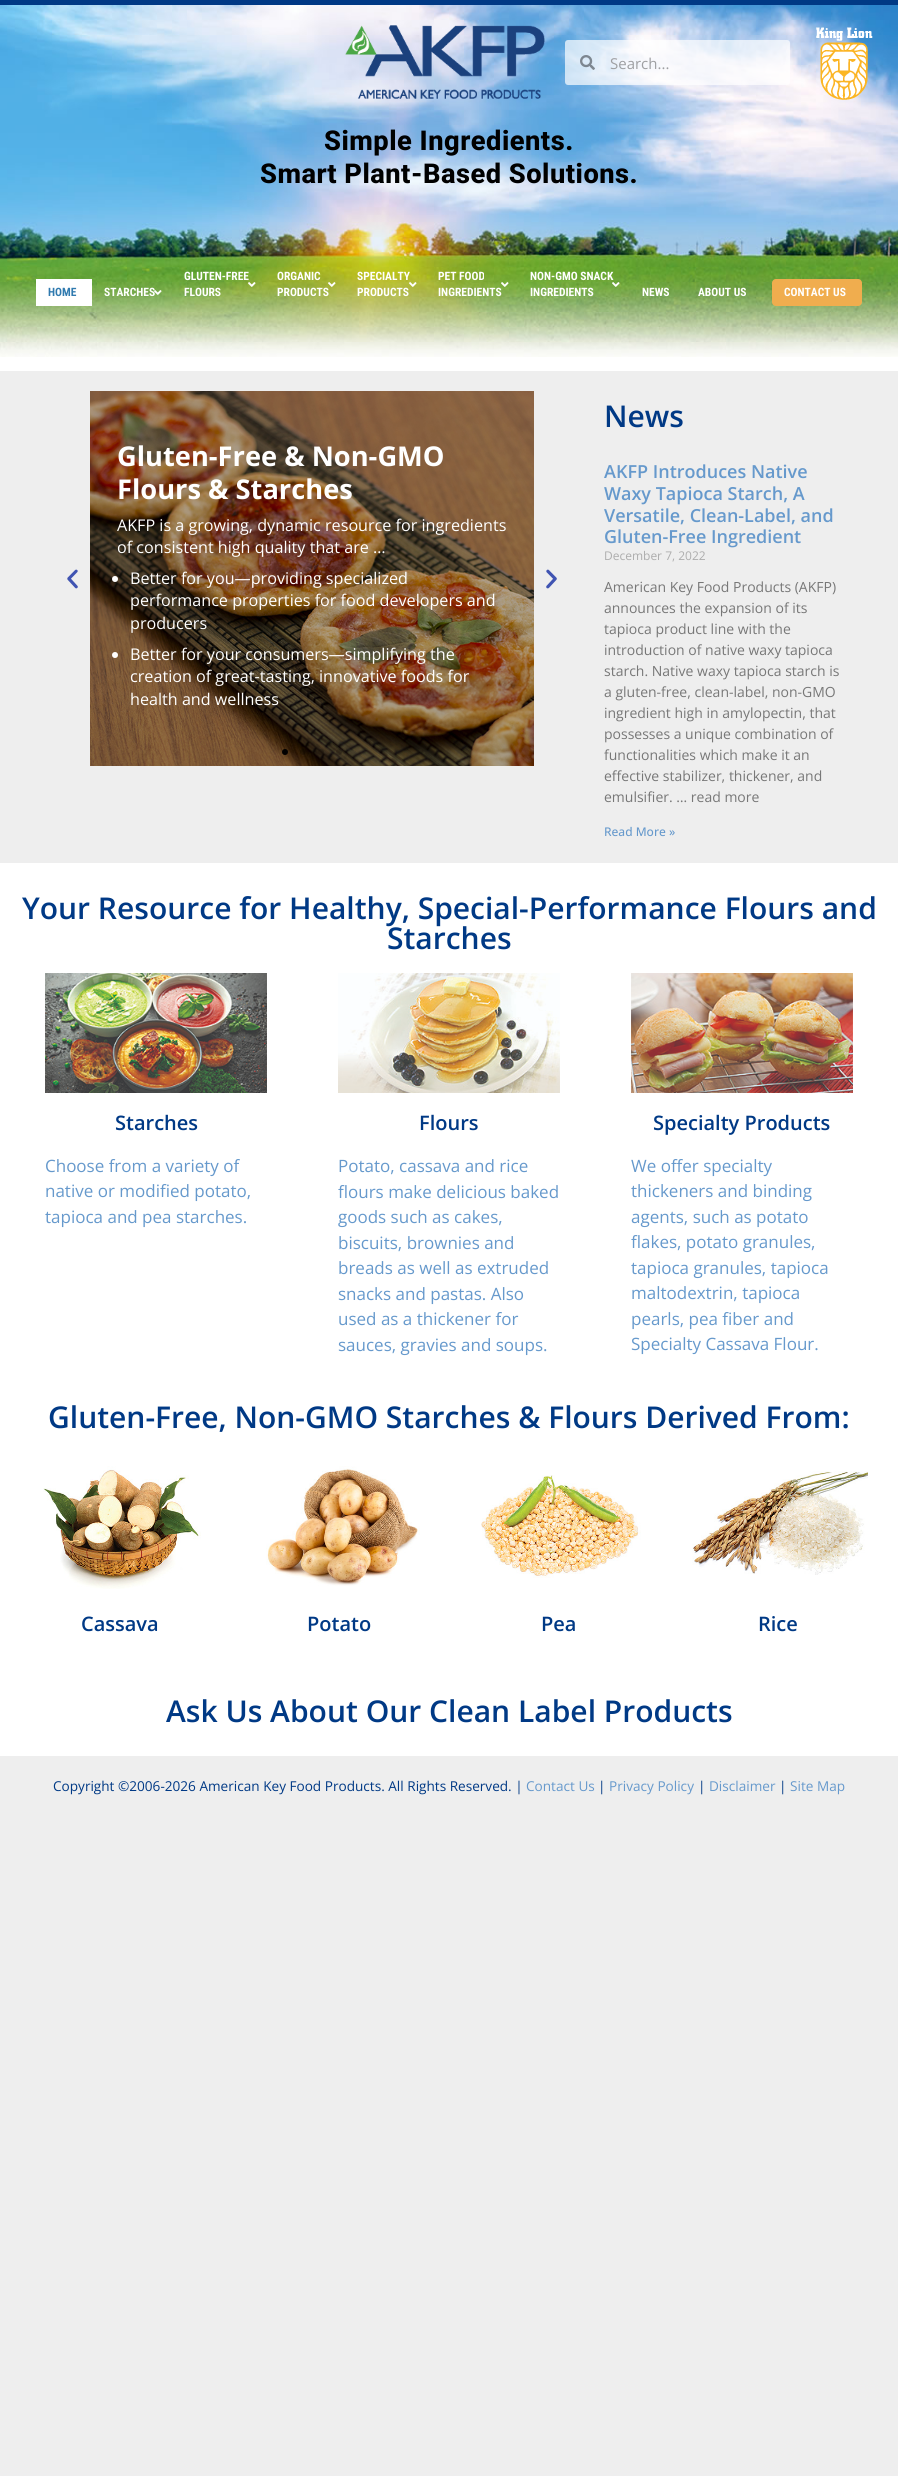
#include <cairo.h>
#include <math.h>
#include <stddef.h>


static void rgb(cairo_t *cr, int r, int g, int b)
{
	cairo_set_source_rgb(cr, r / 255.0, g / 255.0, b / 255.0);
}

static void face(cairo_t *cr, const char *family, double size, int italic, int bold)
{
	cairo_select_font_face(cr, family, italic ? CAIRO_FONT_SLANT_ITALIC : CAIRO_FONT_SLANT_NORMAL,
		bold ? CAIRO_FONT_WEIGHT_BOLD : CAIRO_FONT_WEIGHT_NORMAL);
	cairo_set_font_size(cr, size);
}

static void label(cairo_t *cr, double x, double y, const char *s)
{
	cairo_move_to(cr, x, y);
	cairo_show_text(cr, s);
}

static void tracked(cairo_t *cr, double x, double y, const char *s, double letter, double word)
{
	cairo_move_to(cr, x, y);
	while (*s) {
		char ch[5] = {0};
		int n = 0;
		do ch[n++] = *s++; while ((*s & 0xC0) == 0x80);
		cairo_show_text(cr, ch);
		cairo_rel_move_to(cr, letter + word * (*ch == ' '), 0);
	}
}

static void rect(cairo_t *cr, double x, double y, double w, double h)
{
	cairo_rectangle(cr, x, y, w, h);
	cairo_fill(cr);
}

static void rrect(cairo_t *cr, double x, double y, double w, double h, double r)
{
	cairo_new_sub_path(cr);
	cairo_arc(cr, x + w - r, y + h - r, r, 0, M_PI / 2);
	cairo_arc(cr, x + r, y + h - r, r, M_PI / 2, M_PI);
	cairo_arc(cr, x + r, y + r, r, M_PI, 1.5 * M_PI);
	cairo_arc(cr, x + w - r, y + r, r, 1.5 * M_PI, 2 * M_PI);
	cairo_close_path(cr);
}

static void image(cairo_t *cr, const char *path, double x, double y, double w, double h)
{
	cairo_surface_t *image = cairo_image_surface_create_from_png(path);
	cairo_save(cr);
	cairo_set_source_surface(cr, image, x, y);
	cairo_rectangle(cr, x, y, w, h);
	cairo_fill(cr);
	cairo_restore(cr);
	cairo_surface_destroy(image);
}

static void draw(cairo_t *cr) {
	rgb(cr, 238, 238, 238);
	cairo_paint(cr);
	rgb(cr, 255, 255, 255);
	rect(cr, 0, 357, 898, 14);
	rgb(cr, 0, 57, 133);
	rect(cr, 0, 0, 898, 5);
	image(cr, "image0.png", 0, 5, 898, 352);
	image(cr, "image1.png", 345, 25, 200, 74);
	cairo_set_source_rgba(cr, 1, 1, 1, 0.69);
	rrect(cr, 565, 40, 225, 45, 3);
	cairo_fill(cr);
	image(cr, "image2.png", 580, 55, 15, 15);
	face(cr, "Open Sans", 15, 0, 0);
	rgb(cr, 158, 159, 162);
	label(cr, 610, 69, "Search...");
	image(cr, "image3.png", 816, 27, 57, 73);
	face(cr, "Roboto ExtraBold", 27.25, 0, 0);
	rgb(cr, 0, 0, 0);
	tracked(cr, 324, 150, "Simple Ingredients.", 0.5, 0);
	tracked(cr, 260, 183, "Smart Plant-Based Solutions.", 0.5, 0);
	rgb(cr, 255, 255, 255);
	rect(cr, 36, 279, 56, 27);
	face(cr, "Roboto Condensed", 11.5, 0, 1);
	rgb(cr, 48, 122, 175);
	label(cr, 48, 296, "HOME");
	rgb(cr, 255, 255, 255);
	label(cr, 104, 296, "STARCHES");
	image(cr, "image4.png", 154, 290, 8, 5);
	label(cr, 184, 280, "GLUTEN-FREE");
	label(cr, 184, 296, "FLOURS");
	image(cr, "image5.png", 248, 282, 8, 5);
	label(cr, 277, 280, "ORGANIC");
	label(cr, 277, 296, "PRODUCTS");
	image(cr, "image6.png", 328, 282, 8, 5);
	label(cr, 357, 280, "SPECIALTY");
	label(cr, 357, 296, "PRODUCTS");
	image(cr, "image7.png", 409, 282, 8, 5);
	label(cr, 438, 280, "PET FOOD");
	label(cr, 438, 296, "INGREDIENTS");
	image(cr, "image8.png", 501, 282, 8, 5);
	label(cr, 530, 280, "NON-GMO SNACK");
	label(cr, 530, 296, "INGREDIENTS");
	image(cr, "image9.png", 612, 282, 8, 5);
	label(cr, 642, 296, "NEWS");
	label(cr, 698, 296, "ABOUT US");
	rgb(cr, 240, 173, 78);
	rrect(cr, 772, 279, 90, 27, 4);
	cairo_fill(cr);
	rgb(cr, 255, 255, 255);
	label(cr, 784, 296, "CONTACT US");
	image(cr, "image10.png", 67, 569, 11, 20);
	image(cr, "image11.png", 90, 391, 444, 375);
	face(cr, "Open Sans", 27.25, 0, 1);
	label(cr, 117, 466, "Gluten-Free & Non-GMO");
	label(cr, 117, 499, "Flours & Starches");
	face(cr, "Open Sans", 16.15, 0, 0);
	label(cr, 117, 531, "AKFP is a growing, dynamic resource for ingredients");
	label(cr, 117, 553, "of consistent high quality that are …");
	cairo_new_path(cr);
	cairo_arc(cr, 115, 579, 3, 0, 2 * M_PI);
	cairo_fill(cr);
	label(cr, 130, 584, "Better for you—providing specialized");
	label(cr, 130, 606, "performance properties for food developers and");
	label(cr, 130, 629, "producers");
	cairo_new_path(cr);
	cairo_arc(cr, 115, 655, 3, 0, 2 * M_PI);
	cairo_fill(cr);
	label(cr, 130, 660, "Better for your consumers—simplifying the");
	label(cr, 130, 682, "creation of great-tasting, innovative foods for");
	label(cr, 130, 705, "health and wellness");
	image(cr, "image12.png", 546, 569, 11, 20);
	rgb(cr, 0, 0, 0);
	cairo_arc(cr, 285, 752, 3, 0, 2 * M_PI);
	cairo_fill(cr);
	cairo_set_source_rgba(cr, 0, 0, 0, 0.2);
	cairo_arc(cr, 303, 752, 3, 0, 2 * M_PI);
	cairo_fill(cr);
	cairo_arc(cr, 321, 752, 3, 0, 2 * M_PI);
	cairo_fill(cr);
	cairo_arc(cr, 339, 752, 3, 0, 2 * M_PI);
	cairo_fill(cr);
	face(cr, "Open Sans SemiBold", 30, 0, 0);
	rgb(cr, 0, 57, 133);
	label(cr, 604, 427, "News");
	face(cr, "Open Sans SemiBold", 18, 0, 0);
	rgb(cr, 102, 153, 204);
	label(cr, 604, 478, "AKFP Introduces Native");
	label(cr, 604, 500, "Waxy Tapioca Starch, A");
	label(cr, 604, 522, "Versatile, Clean-Label, and");
	label(cr, 604, 543, "Gluten-Free Ingredient");
	face(cr, "Open Sans", 12, 0, 0);
	rgb(cr, 173, 173, 173);
	label(cr, 604, 560, "December 7, 2022");
	face(cr, "Open Sans", 14, 0, 0);
	rgb(cr, 119, 119, 119);
	label(cr, 604, 592, "American Key Food Products (AKFP)");
	label(cr, 604, 613, "announces the expansion of its");
	label(cr, 604, 634, "tapioca product line with the");
	label(cr, 604, 655, "introduction of native waxy tapioca");
	label(cr, 604, 676, "starch. Native waxy tapioca starch is");
	label(cr, 604, 697, "a gluten-free, clean-label, non-GMO");
	label(cr, 604, 718, "ingredient high in amylopectin, that");
	label(cr, 604, 739, "possesses a unique combination of");
	label(cr, 604, 760, "functionalities which make it an");
	label(cr, 604, 781, "effective stabilizer, thickener, and");
	label(cr, 604, 802, "emulsifier. … read more");
	face(cr, "Open Sans Medium", 12, 0, 0);
	rgb(cr, 102, 153, 204);
	label(cr, 604, 836, "Read More »");
	rgb(cr, 255, 255, 255);
	rect(cr, 0, 863, 898, 893);
	face(cr, "Open Sans SemiBold", 30, 0, 0);
	rgb(cr, 0, 57, 133);
	label(cr, 22, 919, "Your Resource for Healthy, Special-Performance Flours and");
	label(cr, 387, 949, "Starches");
	image(cr, "image13.png", 45, 973, 222, 120);
	face(cr, "Open Sans SemiBold", 20, 0, 0);
	label(cr, 115, 1130, "Starches");
	face(cr, "Open Sans", 17, 0, 0);
	rgb(cr, 102, 153, 204);
	label(cr, 45, 1172, "Choose from a variety of");
	label(cr, 45, 1197, "native or modified potato,");
	label(cr, 45, 1223, "tapioca and pea starches.");
	image(cr, "image14.png", 338, 973, 222, 120);
	face(cr, "Open Sans SemiBold", 20, 0, 0);
	rgb(cr, 0, 57, 133);
	label(cr, 419, 1130, "Flours");
	face(cr, "Open Sans", 17, 0, 0);
	rgb(cr, 102, 153, 204);
	label(cr, 338, 1172, "Potato, cassava and rice");
	label(cr, 338, 1198, "flours make delicious baked");
	label(cr, 338, 1223, "goods such as cakes,");
	label(cr, 338, 1249, "biscuits, brownies and");
	label(cr, 338, 1274, "breads as well as extruded");
	label(cr, 338, 1300, "snacks and pastas. Also");
	label(cr, 338, 1325, "used as a thickener for");
	label(cr, 338, 1351, "sauces, gravies and soups.");
	image(cr, "image15.png", 631, 973, 222, 120);
	face(cr, "Open Sans SemiBold", 20, 0, 0);
	rgb(cr, 0, 57, 133);
	label(cr, 653, 1130, "Specialty Products");
	face(cr, "Open Sans", 17, 0, 0);
	rgb(cr, 102, 153, 204);
	label(cr, 631, 1172, "We offer specialty");
	label(cr, 631, 1197, "thickeners and binding");
	label(cr, 631, 1223, "agents, such as potato");
	label(cr, 631, 1248, "flakes, potato granules,");
	label(cr, 631, 1274, "tapioca granules, tapioca");
	label(cr, 631, 1299, "maltodextrin, tapioca");
	label(cr, 631, 1325, "pearls, pea fiber and");
	label(cr, 631, 1350, "Specialty Cassava Flour.");
	face(cr, "Open Sans SemiBold", 30, 0, 0);
	rgb(cr, 0, 57, 133);
	label(cr, 48, 1428, "Gluten-Free, Non-GMO Starches & Flours Derived From:");
	image(cr, "image16.png", 43, 1466, 158, 123);
	face(cr, "Open Sans SemiBold", 20, 0, 0);
	label(cr, 81, 1631, "Cassava");
	image(cr, "image17.png", 266, 1466, 154, 120);
	label(cr, 307, 1631, "Potato");
	image(cr, "image18.png", 481, 1475, 160, 103);
	label(cr, 541, 1631, "Pea");
	image(cr, "image19.png", 692, 1471, 176, 104);
	label(cr, 758, 1631, "Rice");
	face(cr, "Open Sans SemiBold", 30, 0, 0);
	label(cr, 166, 1722, "Ask Us About Our Clean Label Products");
	face(cr, "Open Sans", 13.6, 0, 0);
	label(cr, 53, 1791, "Copyright ©2006-2026 American Key Food Products. All Rights Reserved. |");
	rgb(cr, 102, 153, 204);
	label(cr, 526, 1791, "Contact Us");
	rgb(cr, 0, 57, 133);
	label(cr, 598, 1791, "|");
	rgb(cr, 102, 153, 204);
	label(cr, 609, 1791, "Privacy Policy");
	rgb(cr, 0, 57, 133);
	label(cr, 698, 1791, "|");
	rgb(cr, 102, 153, 204);
	label(cr, 709, 1791, "Disclaimer");
	rgb(cr, 0, 57, 133);
	label(cr, 779, 1791, "|");
	rgb(cr, 102, 153, 204);
	label(cr, 790, 1791, "Site Map");
}

int main(void) {
	cairo_surface_t *surface = cairo_image_surface_create(CAIRO_FORMAT_RGB24, 898, 2476);
	cairo_t *cr = cairo_create(surface);
	cairo_font_options_t *options = cairo_font_options_create();
	cairo_font_options_set_hint_metrics(options, CAIRO_HINT_METRICS_OFF);
	cairo_font_options_set_hint_style(options, CAIRO_HINT_STYLE_NONE);
	cairo_set_font_options(cr, options);
	cairo_set_miter_limit(cr, 4);
	draw(cr);
	cairo_surface_write_to_png(surface, "render.png");
	cairo_font_options_destroy(options);
	cairo_destroy(cr);
	cairo_surface_destroy(surface);
	return 0;
}
